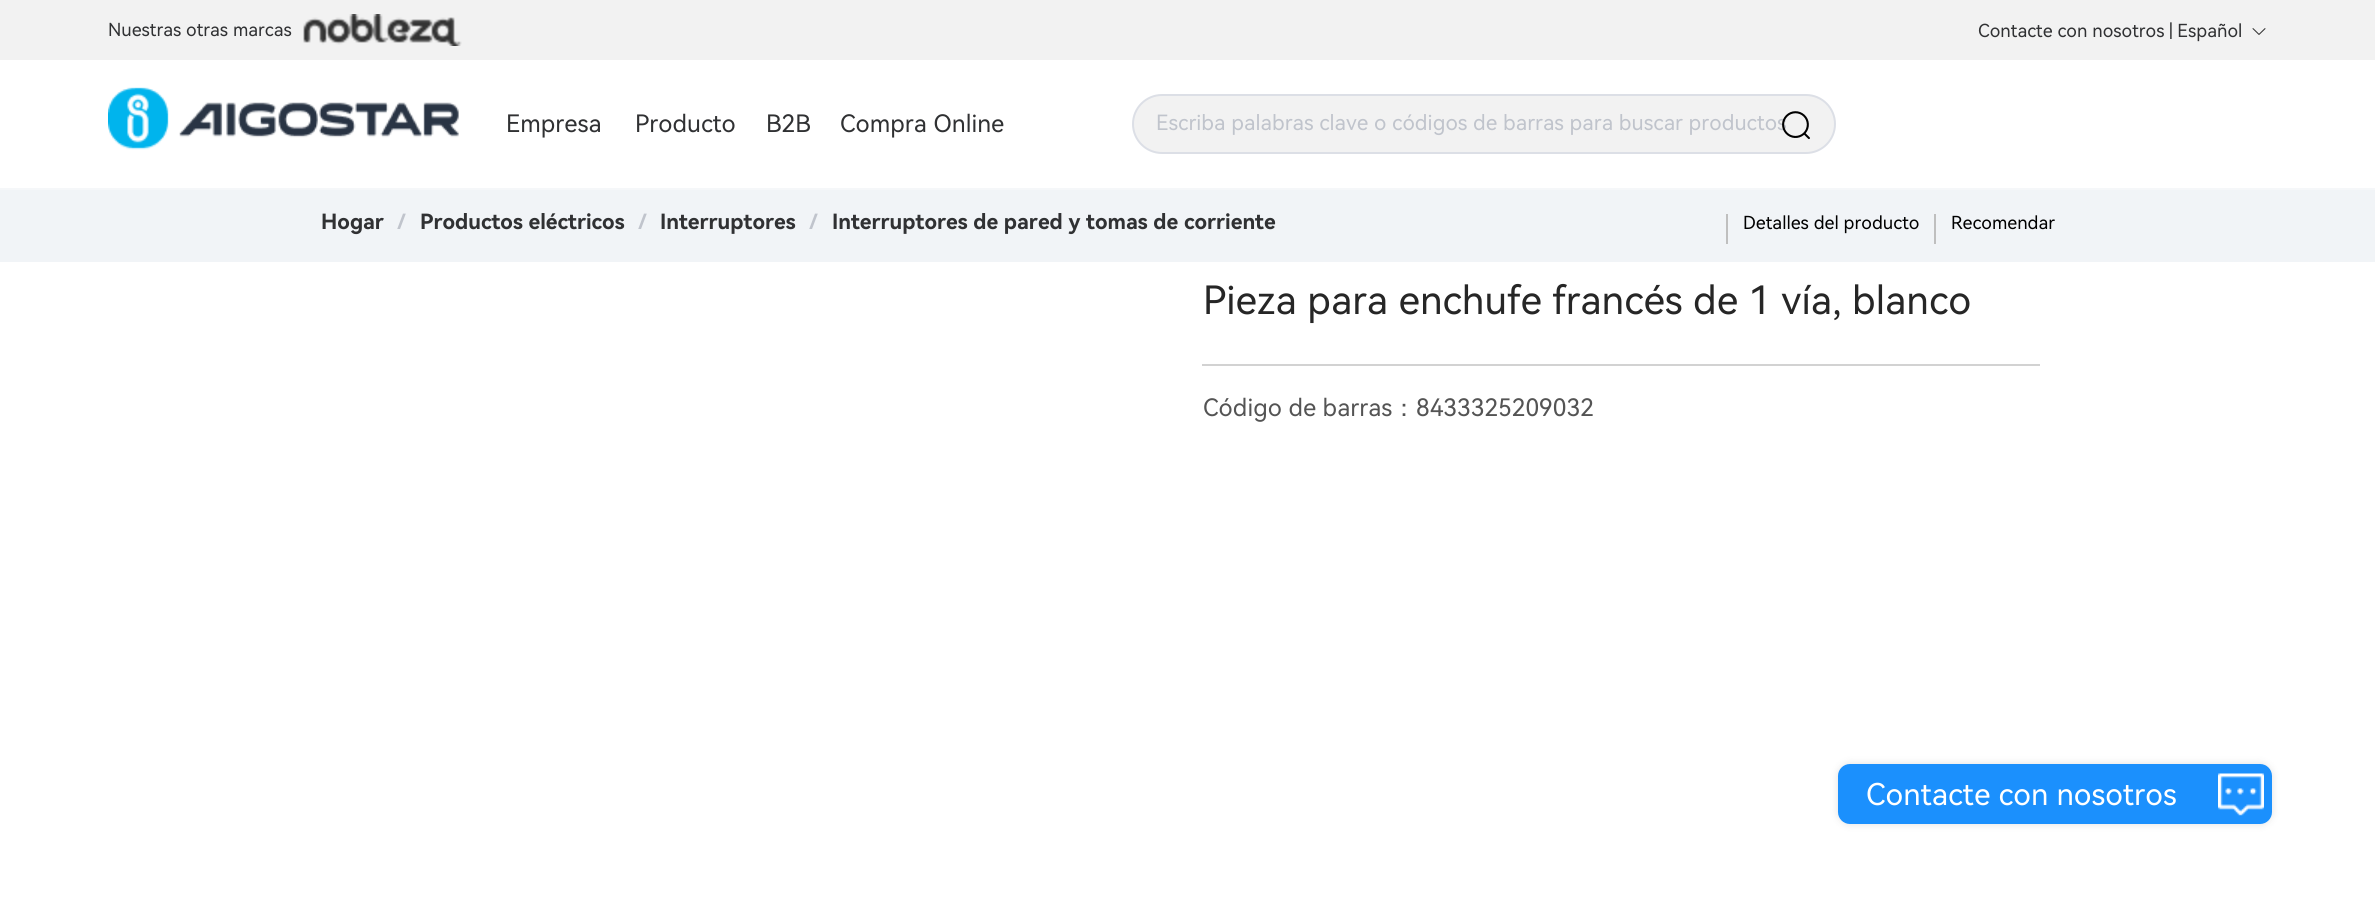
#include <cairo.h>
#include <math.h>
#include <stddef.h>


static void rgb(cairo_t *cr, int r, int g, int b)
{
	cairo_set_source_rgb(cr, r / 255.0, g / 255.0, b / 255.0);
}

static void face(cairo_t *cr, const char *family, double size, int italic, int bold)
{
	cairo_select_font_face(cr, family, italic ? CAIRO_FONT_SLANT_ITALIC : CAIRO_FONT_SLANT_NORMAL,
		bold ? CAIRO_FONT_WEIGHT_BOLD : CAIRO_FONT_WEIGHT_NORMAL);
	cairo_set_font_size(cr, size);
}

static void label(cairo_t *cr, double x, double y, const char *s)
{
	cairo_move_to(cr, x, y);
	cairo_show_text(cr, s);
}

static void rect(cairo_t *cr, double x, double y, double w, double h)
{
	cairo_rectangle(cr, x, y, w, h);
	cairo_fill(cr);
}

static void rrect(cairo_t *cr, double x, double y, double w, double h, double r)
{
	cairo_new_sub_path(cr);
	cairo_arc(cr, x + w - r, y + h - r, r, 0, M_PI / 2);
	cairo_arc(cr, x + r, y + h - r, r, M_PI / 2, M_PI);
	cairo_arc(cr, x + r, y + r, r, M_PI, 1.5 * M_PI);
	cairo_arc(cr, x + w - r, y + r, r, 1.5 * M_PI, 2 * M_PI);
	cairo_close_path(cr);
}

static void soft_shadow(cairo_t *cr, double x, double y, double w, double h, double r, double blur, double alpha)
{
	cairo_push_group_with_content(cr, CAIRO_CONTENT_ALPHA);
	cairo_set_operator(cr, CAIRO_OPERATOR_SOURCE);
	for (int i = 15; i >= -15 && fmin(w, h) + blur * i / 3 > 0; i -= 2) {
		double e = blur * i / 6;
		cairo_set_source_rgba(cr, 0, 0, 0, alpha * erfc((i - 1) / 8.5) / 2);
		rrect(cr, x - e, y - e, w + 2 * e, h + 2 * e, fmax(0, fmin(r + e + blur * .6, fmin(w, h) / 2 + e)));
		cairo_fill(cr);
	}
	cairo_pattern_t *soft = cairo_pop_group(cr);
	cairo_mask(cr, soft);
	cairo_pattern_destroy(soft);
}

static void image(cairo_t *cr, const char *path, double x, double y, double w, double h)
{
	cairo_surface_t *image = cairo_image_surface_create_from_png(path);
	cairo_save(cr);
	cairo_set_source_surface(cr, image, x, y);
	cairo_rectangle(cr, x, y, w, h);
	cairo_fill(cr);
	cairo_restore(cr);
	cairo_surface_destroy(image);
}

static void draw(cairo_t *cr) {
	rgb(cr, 241, 244, 247);
	cairo_paint(cr);
	rgb(cr, 242, 242, 242);
	rect(cr, 0, 0, 2375, 60);
	face(cr, "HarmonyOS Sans", 18, 0, 0);
	rgb(cr, 48, 49, 51);
	label(cr, 108, 36, "Nuestras otras marcas");
	image(cr, "image0.png", 303, 14, 159, 32);
	label(cr, 1978, 37, "Contacte con nosotros | Español");
	image(cr, "image1.png", 2252, 28, 14, 7);
	rgb(cr, 255, 255, 255);
	rect(cr, 0, 60, 2375, 128);
	rgb(cr, 245, 247, 249);
	rect(cr, 0, 188, 2375, 2);
	image(cr, "image2.png", 108, 87, 351, 63);
	face(cr, "HarmonyOS Sans", 24, 0, 0);
	rgb(cr, 48, 49, 51);
	label(cr, 506, 132, "Empresa");
	label(cr, 635, 132, "Producto");
	label(cr, 766, 132, "B2B");
	label(cr, 840, 132, "Compra Online");
	rgb(cr, 242, 242, 242);
	rrect(cr, 1133, 95, 702, 58, 29);
	cairo_fill_preserve(cr);
	rgb(cr, 220, 223, 230);
	cairo_stroke(cr);
	face(cr, "HarmonyOS Sans", 21, 0, 0);
	rgb(cr, 192, 196, 204);
	label(cr, 1156, 130, "Escriba palabras clave o códigos de barras para buscar productos");
	image(cr, "image3.png", 1782, 111, 28, 29);
	face(cr, "HarmonyOS Sans", 21, 0, 1);
	rgb(cr, 48, 49, 51);
	label(cr, 321, 229, "Hogar");
	rgb(cr, 192, 196, 204);
	label(cr, 397, 229, "/");
	rgb(cr, 48, 49, 51);
	label(cr, 420, 229, "Productos eléctricos");
	rgb(cr, 192, 196, 204);
	label(cr, 638, 229, "/");
	rgb(cr, 48, 49, 51);
	label(cr, 660, 229, "Interruptores");
	rgb(cr, 192, 196, 204);
	label(cr, 809, 229, "/");
	rgb(cr, 48, 49, 51);
	label(cr, 832, 229, "Interruptores de pared y tomas de corriente");
	rgb(cr, 191, 191, 191);
	rect(cr, 1726, 214, 2, 30);
	face(cr, "HarmonyOS Sans", 18, 0, 0);
	rgb(cr, 0, 0, 0);
	label(cr, 1743, 229, "Detalles del producto");
	rgb(cr, 191, 191, 191);
	rect(cr, 1934, 214, 2, 30);
	rgb(cr, 0, 0, 0);
	label(cr, 1951, 229, "Recomendar");
	rgb(cr, 255, 255, 255);
	rect(cr, 0, 262, 2375, 642);
	face(cr, "HarmonyOS Sans", 39, 0, 0);
	rgb(cr, 38, 38, 38);
	label(cr, 1203, 314, "Pieza para enchufe francés de 1 vía, blanco");
	rgb(cr, 210, 210, 210);
	rect(cr, 1202, 364, 838, 2);
	face(cr, "HarmonyOS Sans", 24, 0, 0);
	rgb(cr, 84, 84, 84);
	label(cr, 1203, 416, "Código de barras");
	face(cr, "WenQuanYi Zen Hei Medium", 24, 0, 0);
	label(cr, 1392, 416, "：");
	face(cr, "HarmonyOS Sans", 24, 0, 0);
	label(cr, 1416, 416, "8433325209032");
	rgb(cr, 0, 0, 0);
	soft_shadow(cr, 1838, 764, 434, 60, 12, 4.5, 0.12);
	rgb(cr, 27, 144, 253);
	rrect(cr, 1838, 764, 434, 60, 12);
	cairo_fill(cr);
	face(cr, "HarmonyOS Sans", 30, 0, 0);
	rgb(cr, 255, 255, 255);
	label(cr, 1866, 805, "Contacte con nosotros");
	image(cr, "image4.png", 2218, 773, 46, 43);
}

int main(void) {
	cairo_surface_t *surface = cairo_image_surface_create(CAIRO_FORMAT_RGB24, 2375, 904);
	cairo_t *cr = cairo_create(surface);
	cairo_font_options_t *options = cairo_font_options_create();
	cairo_font_options_set_hint_metrics(options, CAIRO_HINT_METRICS_OFF);
	cairo_font_options_set_hint_style(options, CAIRO_HINT_STYLE_NONE);
	cairo_set_font_options(cr, options);
	cairo_set_miter_limit(cr, 4);
	draw(cr);
	cairo_surface_write_to_png(surface, "render.png");
	cairo_font_options_destroy(options);
	cairo_destroy(cr);
	cairo_surface_destroy(surface);
	return 0;
}
